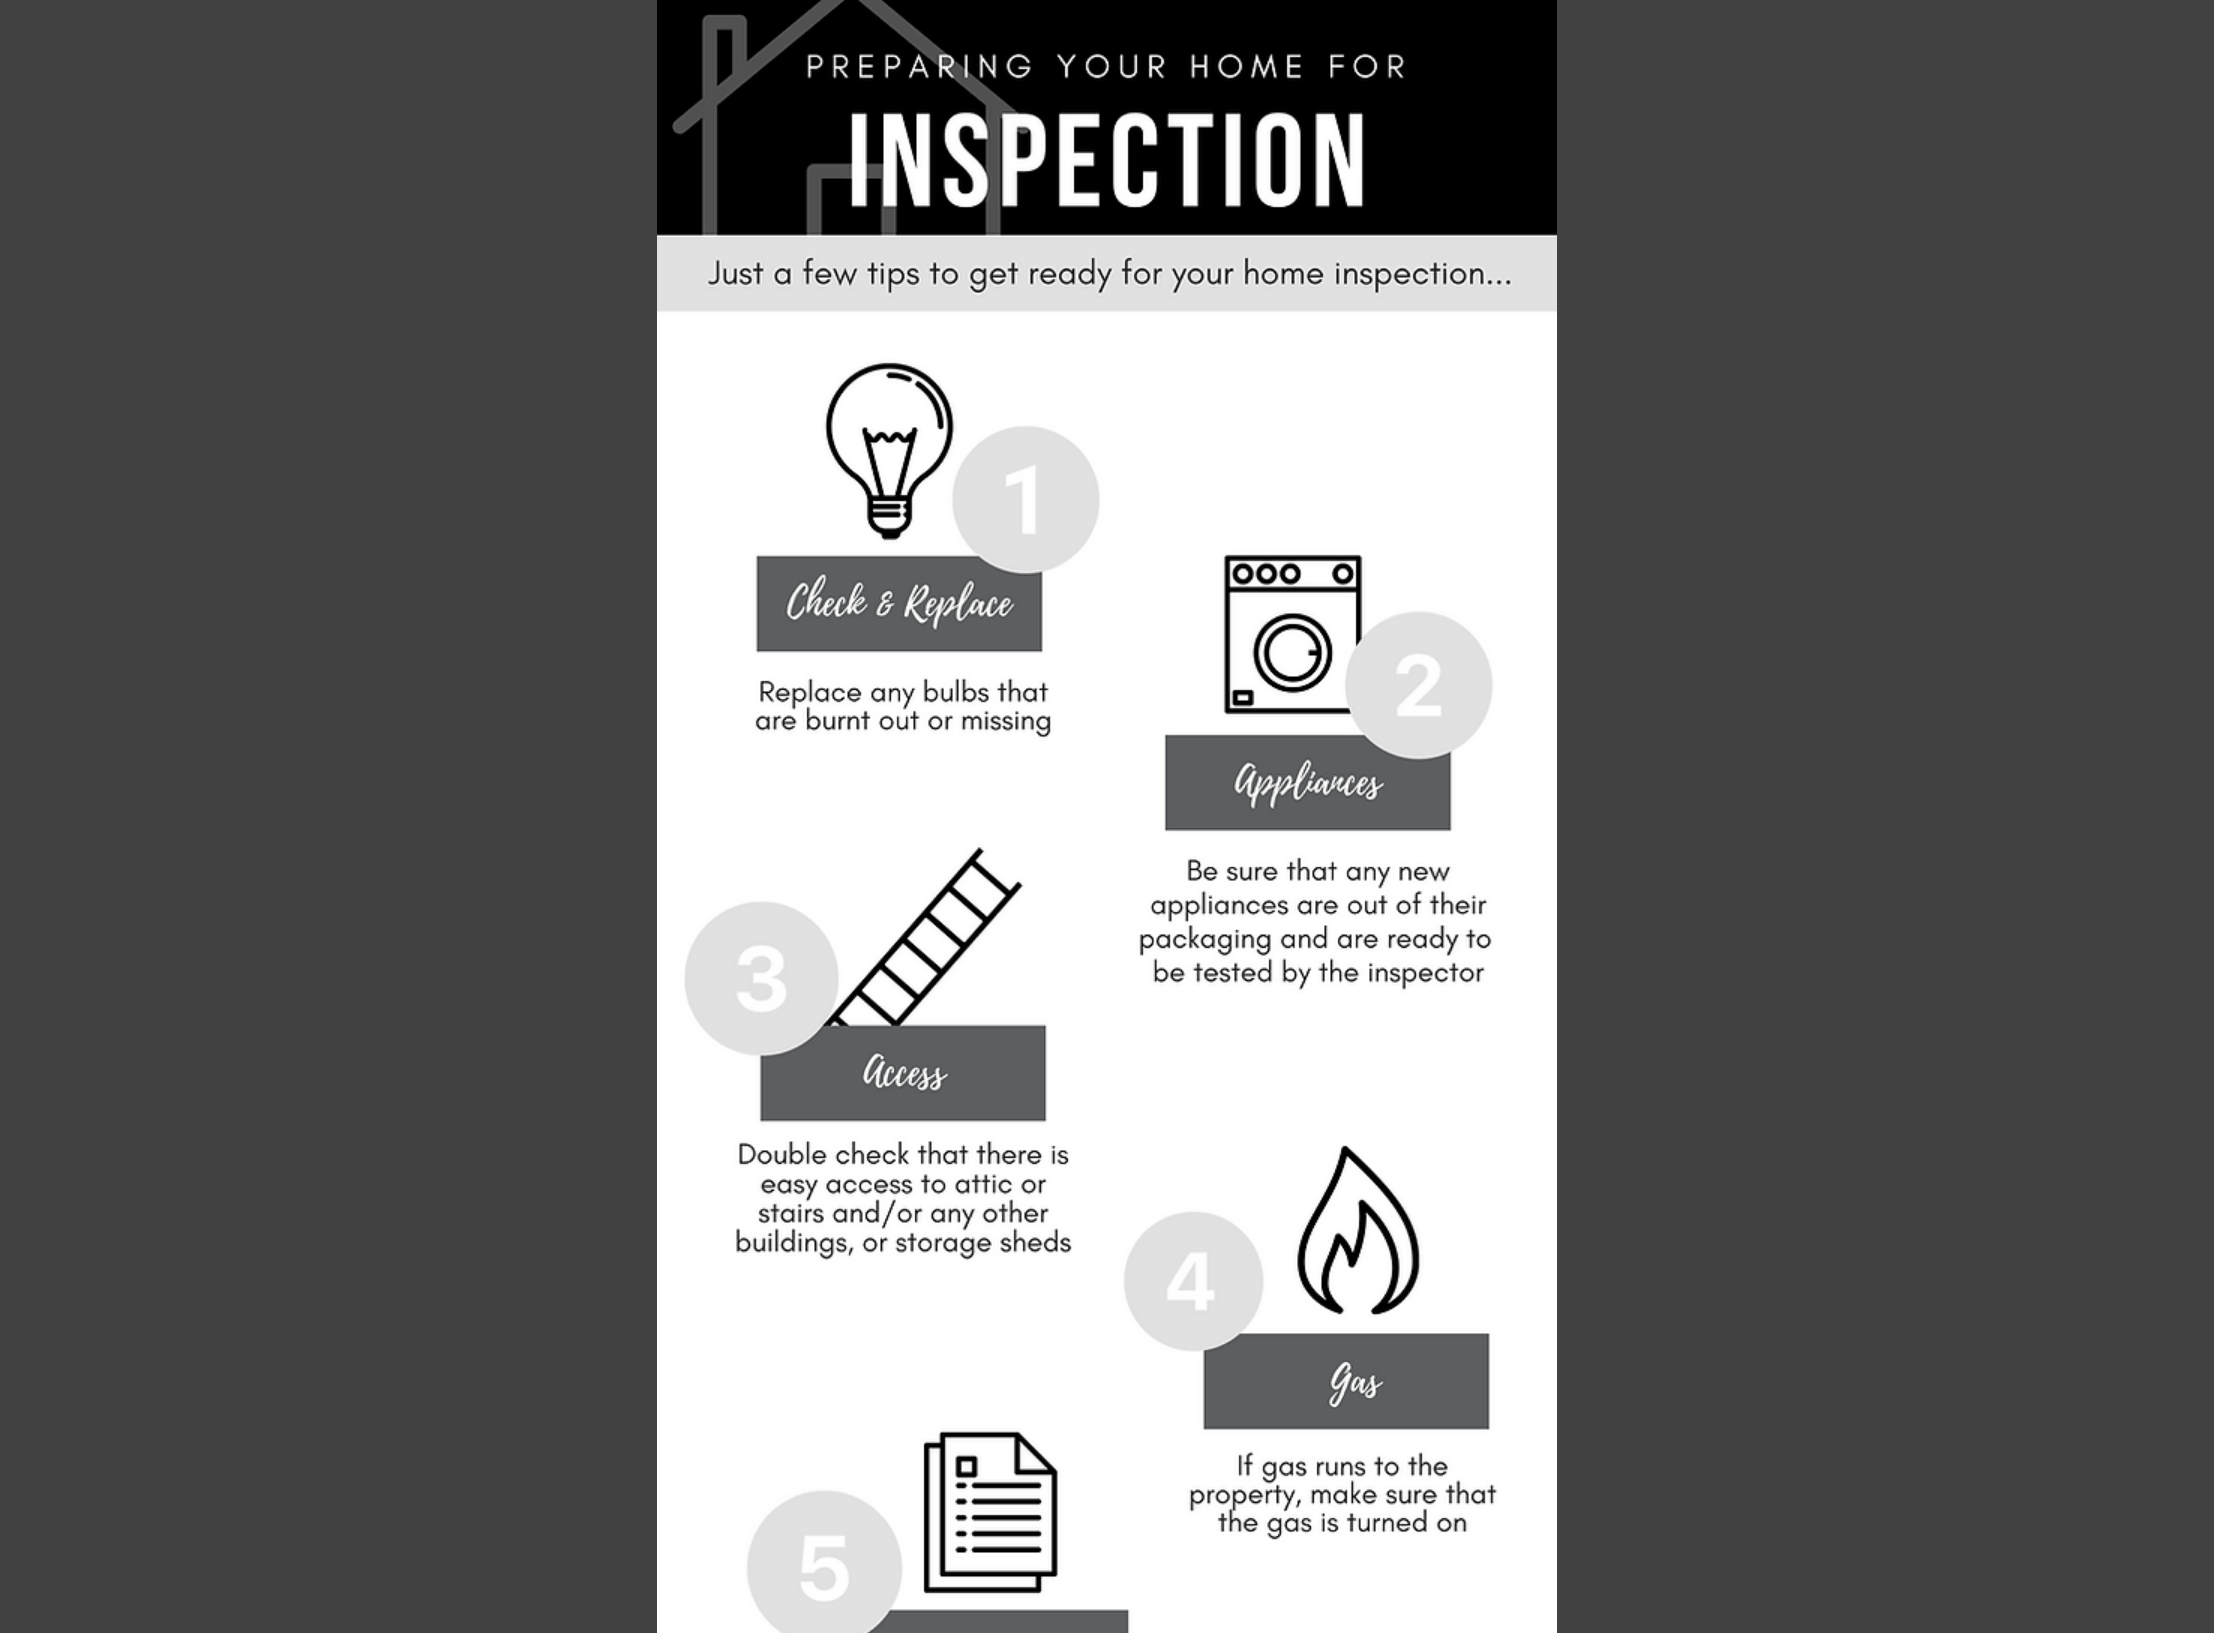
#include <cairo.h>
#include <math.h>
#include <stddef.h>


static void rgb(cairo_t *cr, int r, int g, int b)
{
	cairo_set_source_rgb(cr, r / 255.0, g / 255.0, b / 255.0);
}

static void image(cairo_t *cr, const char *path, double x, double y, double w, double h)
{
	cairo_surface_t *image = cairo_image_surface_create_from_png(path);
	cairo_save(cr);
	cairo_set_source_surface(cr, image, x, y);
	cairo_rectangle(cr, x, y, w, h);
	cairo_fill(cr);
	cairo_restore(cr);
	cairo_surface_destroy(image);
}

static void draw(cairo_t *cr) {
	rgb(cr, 65, 65, 65);
	cairo_paint(cr);
	image(cr, "image0.png", 657, 0, 900, 1633);
}

int main(void) {
	cairo_surface_t *surface = cairo_image_surface_create(CAIRO_FORMAT_RGB24, 2214, 1633);
	cairo_t *cr = cairo_create(surface);
	cairo_font_options_t *options = cairo_font_options_create();
	cairo_font_options_set_hint_metrics(options, CAIRO_HINT_METRICS_OFF);
	cairo_font_options_set_hint_style(options, CAIRO_HINT_STYLE_NONE);
	cairo_set_font_options(cr, options);
	cairo_set_miter_limit(cr, 4);
	draw(cr);
	cairo_surface_write_to_png(surface, "render.png");
	cairo_font_options_destroy(options);
	cairo_destroy(cr);
	cairo_surface_destroy(surface);
	return 0;
}
